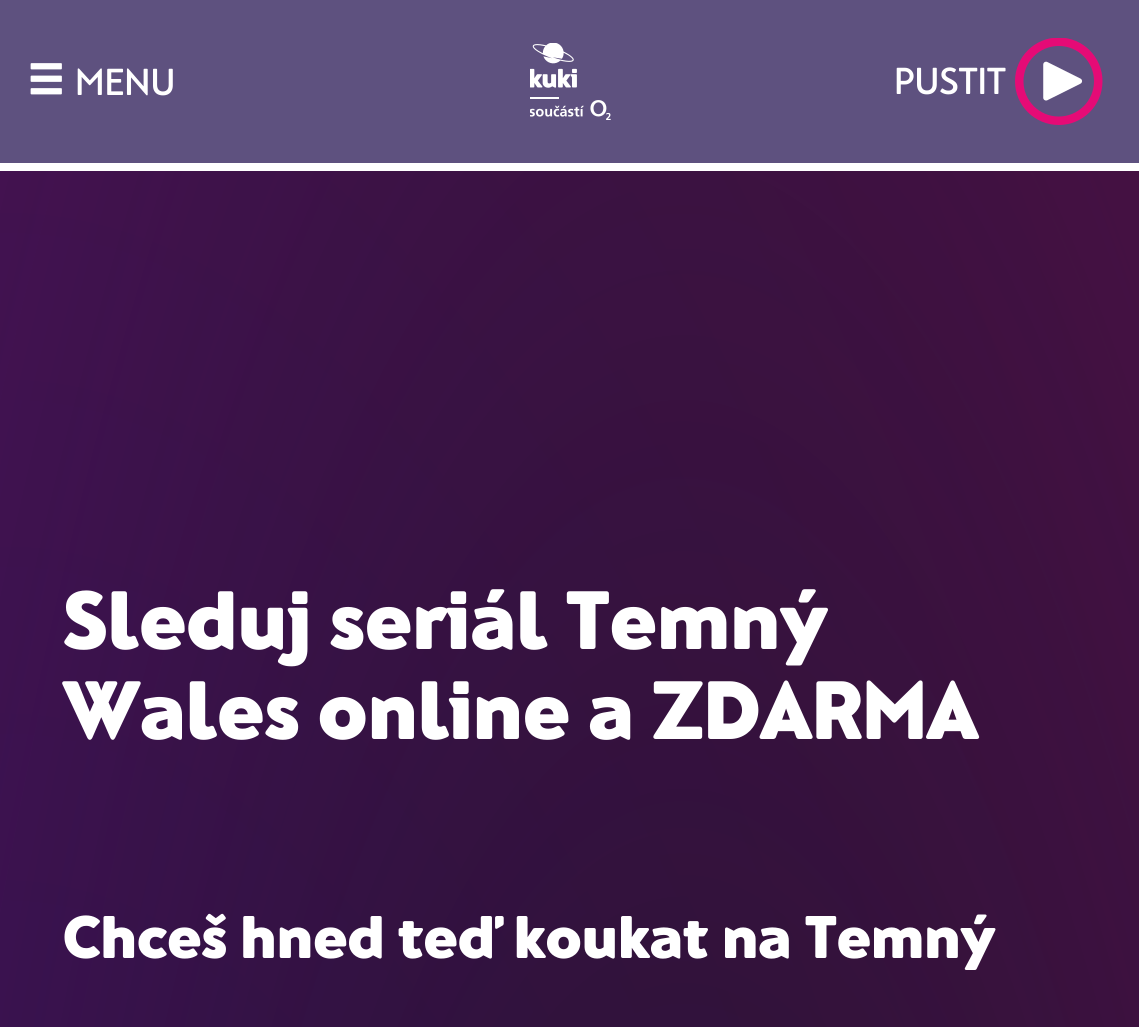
#include <cairo.h>
#include <math.h>
#include <stddef.h>


static void rgb(cairo_t *cr, int r, int g, int b)
{
	cairo_set_source_rgb(cr, r / 255.0, g / 255.0, b / 255.0);
}

static void face(cairo_t *cr, const char *family, double size, int italic, int bold)
{
	cairo_select_font_face(cr, family, italic ? CAIRO_FONT_SLANT_ITALIC : CAIRO_FONT_SLANT_NORMAL,
		bold ? CAIRO_FONT_WEIGHT_BOLD : CAIRO_FONT_WEIGHT_NORMAL);
	cairo_set_font_size(cr, size);
}

static void label(cairo_t *cr, double x, double y, const char *s)
{
	cairo_move_to(cr, x, y);
	cairo_show_text(cr, s);
}

static void rect(cairo_t *cr, double x, double y, double w, double h)
{
	cairo_rectangle(cr, x, y, w, h);
	cairo_fill(cr);
}

static void image(cairo_t *cr, const char *path, double x, double y, double w, double h)
{
	cairo_surface_t *image = cairo_image_surface_create_from_png(path);
	cairo_save(cr);
	cairo_set_source_surface(cr, image, x, y);
	cairo_rectangle(cr, x, y, w, h);
	cairo_fill(cr);
	cairo_restore(cr);
	cairo_surface_destroy(image);
}

static void draw(cairo_t *cr) {
	cairo_pattern_t *gradient;
	rgb(cr, 255, 255, 255);
	cairo_paint(cr);
	rgb(cr, 94, 81, 127);
	rect(cr, 0, 0, 1139, 163);
	image(cr, "image0.png", 30, 63, 32, 32);
	face(cr, "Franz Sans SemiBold", 37.5, 0, 0);
	rgb(cr, 255, 255, 255);
	label(cr, 75, 95, "MENU");
	image(cr, "image1.png", 530, 43, 81, 77);
	label(cr, 894, 94, "PUSTIT");
	image(cr, "image2.png", 1015, 38, 88, 87);
	gradient = cairo_pattern_create_radial(0, 0, 0, 0, 0, 1);
	cairo_pattern_set_matrix(gradient, &(cairo_matrix_t){1.0 / 1612, 0, 0, 1.0 / 4685, -1.0 * 0 / 1612, -1.0 * 3483 / 4685});
	cairo_pattern_add_color_stop_rgba(gradient, 0, 0.184, 0.078, 0.392, 1);
	cairo_pattern_add_color_stop_rgba(gradient, 1, 0.294, 0.067, 0.282, 1);
	cairo_set_source(cr, gradient);
	cairo_pattern_destroy(gradient);
	rect(cr, 0, 171, 1139, 856);
	gradient = cairo_pattern_create_radial(0, 0, 0, 0, 0, 1);
	cairo_pattern_set_matrix(gradient, &(cairo_matrix_t){1.0 / 967, 0, 0, 1.0 / 3748, -1.0 * 684 / 967, -1.0 * 2820 / 3748});
	cairo_pattern_add_color_stop_rgba(gradient, 0, 0.078, 0.067, 0.082, 0.7);
	cairo_pattern_add_color_stop_rgba(gradient, 1, 0.078, 0.067, 0.082, 0);
	cairo_set_source(cr, gradient);
	cairo_pattern_destroy(gradient);
	rect(cr, 0, 171, 1139, 856);
	face(cr, "Franz Sans Black", 82.5, 0, 0);
	rgb(cr, 255, 255, 255);
	label(cr, 63, 649, "Sleduj seriál Temný");
	label(cr, 63, 739, "Wales online a ZDARMA");
	face(cr, "Franz Sans Black", 60, 0, 0);
	label(cr, 63, 958, "Chceš hned teď koukat na Temný");
}

int main(void) {
	cairo_surface_t *surface = cairo_image_surface_create(CAIRO_FORMAT_RGB24, 1139, 1027);
	cairo_t *cr = cairo_create(surface);
	cairo_font_options_t *options = cairo_font_options_create();
	cairo_font_options_set_hint_metrics(options, CAIRO_HINT_METRICS_OFF);
	cairo_font_options_set_hint_style(options, CAIRO_HINT_STYLE_NONE);
	cairo_set_font_options(cr, options);
	cairo_set_miter_limit(cr, 4);
	draw(cr);
	cairo_surface_write_to_png(surface, "render.png");
	cairo_font_options_destroy(options);
	cairo_destroy(cr);
	cairo_surface_destroy(surface);
	return 0;
}
